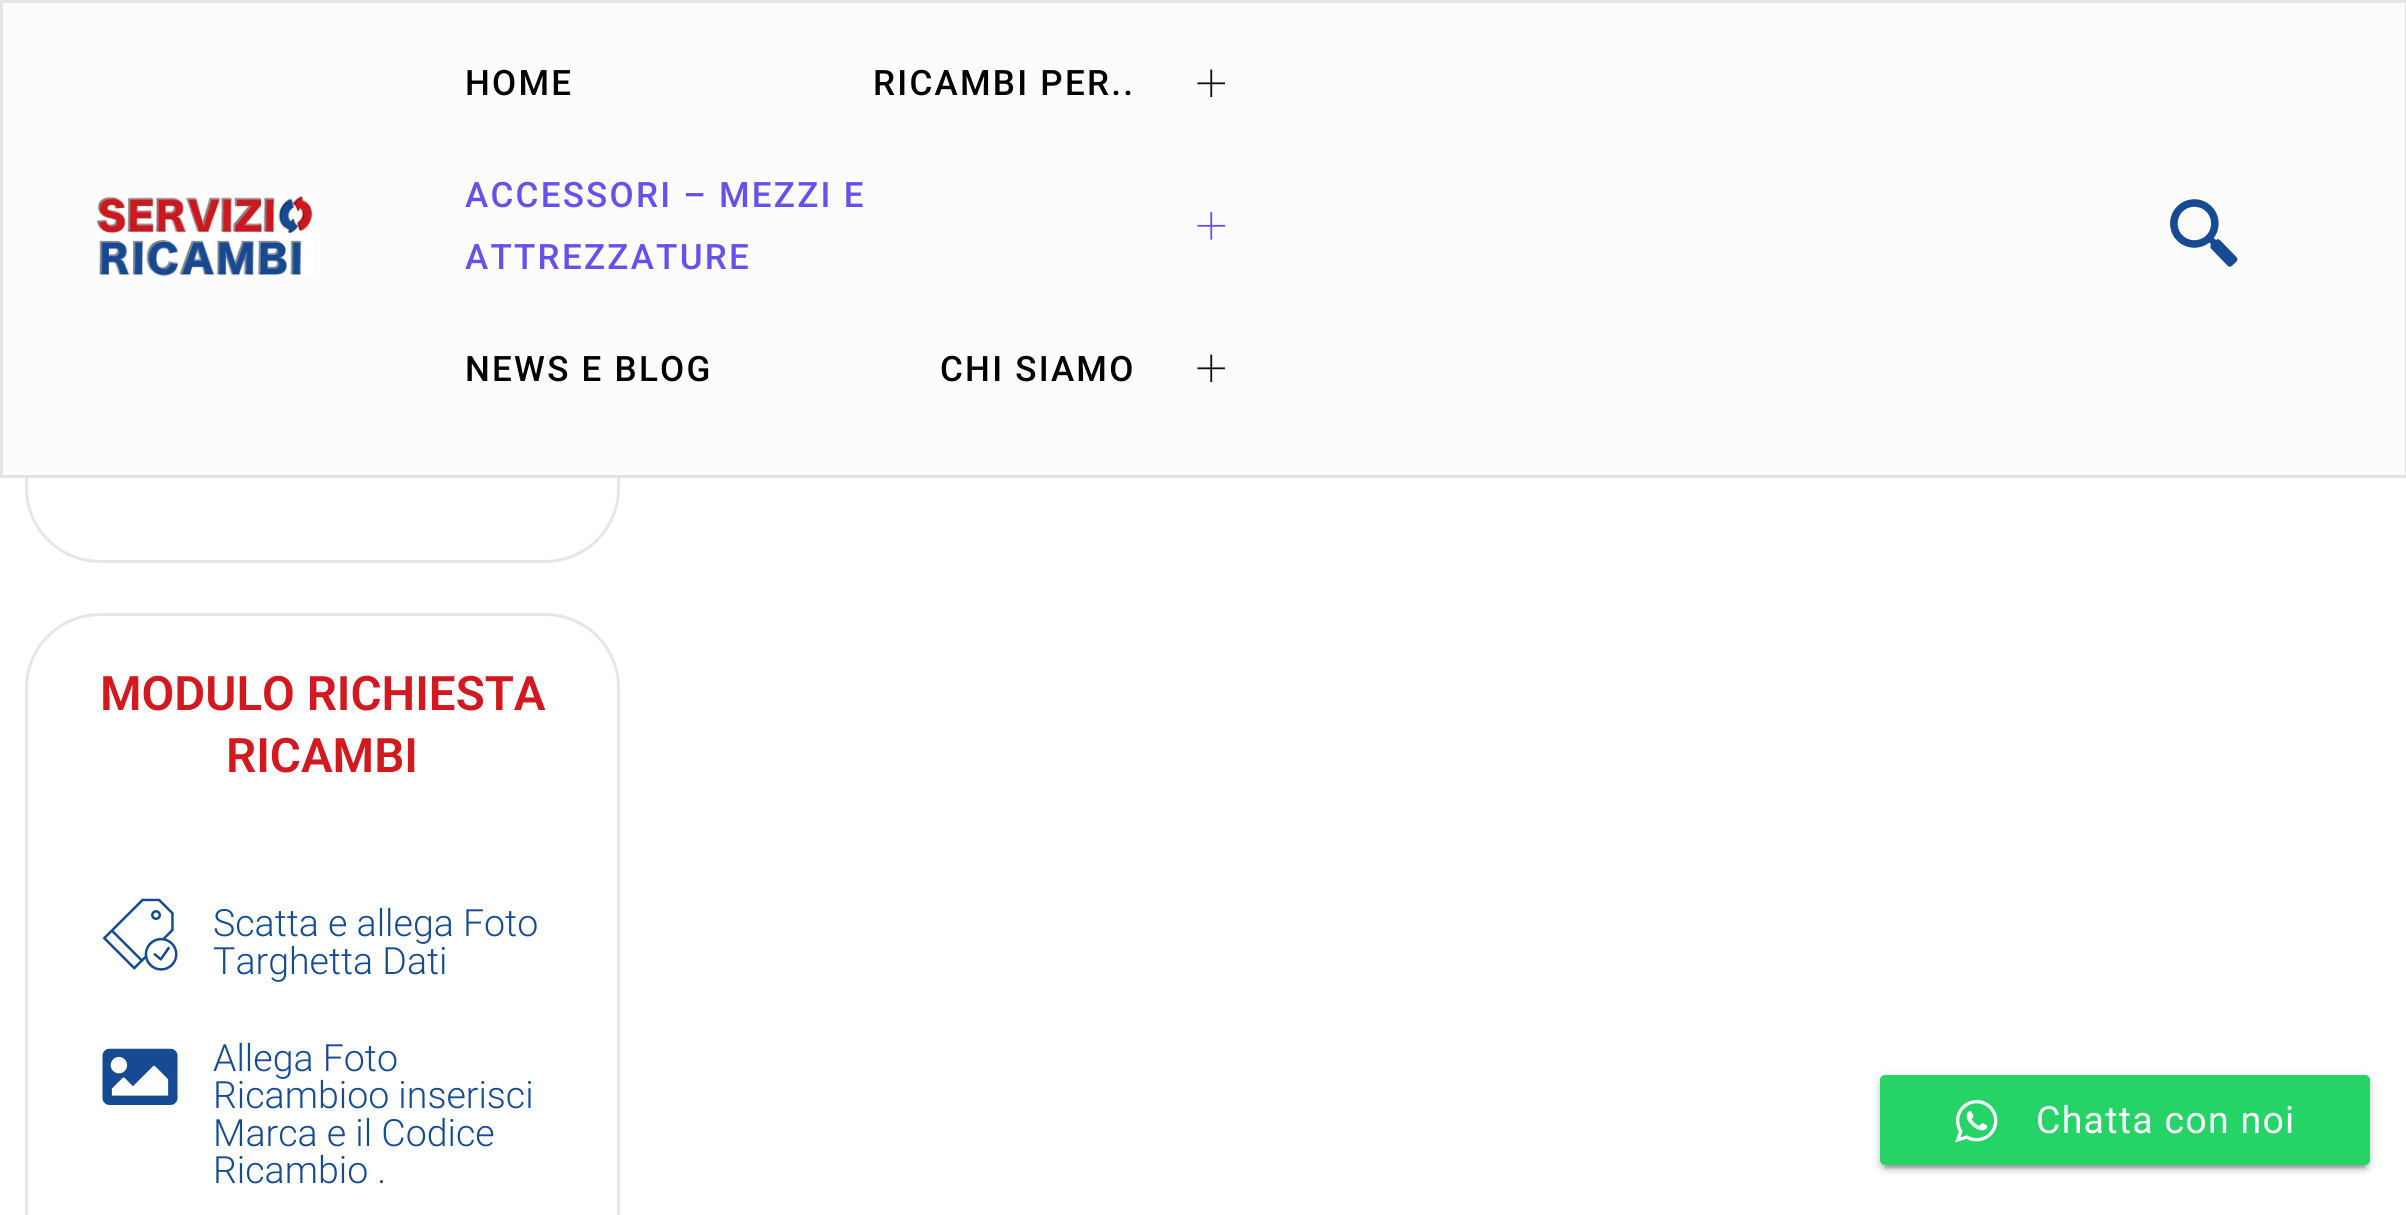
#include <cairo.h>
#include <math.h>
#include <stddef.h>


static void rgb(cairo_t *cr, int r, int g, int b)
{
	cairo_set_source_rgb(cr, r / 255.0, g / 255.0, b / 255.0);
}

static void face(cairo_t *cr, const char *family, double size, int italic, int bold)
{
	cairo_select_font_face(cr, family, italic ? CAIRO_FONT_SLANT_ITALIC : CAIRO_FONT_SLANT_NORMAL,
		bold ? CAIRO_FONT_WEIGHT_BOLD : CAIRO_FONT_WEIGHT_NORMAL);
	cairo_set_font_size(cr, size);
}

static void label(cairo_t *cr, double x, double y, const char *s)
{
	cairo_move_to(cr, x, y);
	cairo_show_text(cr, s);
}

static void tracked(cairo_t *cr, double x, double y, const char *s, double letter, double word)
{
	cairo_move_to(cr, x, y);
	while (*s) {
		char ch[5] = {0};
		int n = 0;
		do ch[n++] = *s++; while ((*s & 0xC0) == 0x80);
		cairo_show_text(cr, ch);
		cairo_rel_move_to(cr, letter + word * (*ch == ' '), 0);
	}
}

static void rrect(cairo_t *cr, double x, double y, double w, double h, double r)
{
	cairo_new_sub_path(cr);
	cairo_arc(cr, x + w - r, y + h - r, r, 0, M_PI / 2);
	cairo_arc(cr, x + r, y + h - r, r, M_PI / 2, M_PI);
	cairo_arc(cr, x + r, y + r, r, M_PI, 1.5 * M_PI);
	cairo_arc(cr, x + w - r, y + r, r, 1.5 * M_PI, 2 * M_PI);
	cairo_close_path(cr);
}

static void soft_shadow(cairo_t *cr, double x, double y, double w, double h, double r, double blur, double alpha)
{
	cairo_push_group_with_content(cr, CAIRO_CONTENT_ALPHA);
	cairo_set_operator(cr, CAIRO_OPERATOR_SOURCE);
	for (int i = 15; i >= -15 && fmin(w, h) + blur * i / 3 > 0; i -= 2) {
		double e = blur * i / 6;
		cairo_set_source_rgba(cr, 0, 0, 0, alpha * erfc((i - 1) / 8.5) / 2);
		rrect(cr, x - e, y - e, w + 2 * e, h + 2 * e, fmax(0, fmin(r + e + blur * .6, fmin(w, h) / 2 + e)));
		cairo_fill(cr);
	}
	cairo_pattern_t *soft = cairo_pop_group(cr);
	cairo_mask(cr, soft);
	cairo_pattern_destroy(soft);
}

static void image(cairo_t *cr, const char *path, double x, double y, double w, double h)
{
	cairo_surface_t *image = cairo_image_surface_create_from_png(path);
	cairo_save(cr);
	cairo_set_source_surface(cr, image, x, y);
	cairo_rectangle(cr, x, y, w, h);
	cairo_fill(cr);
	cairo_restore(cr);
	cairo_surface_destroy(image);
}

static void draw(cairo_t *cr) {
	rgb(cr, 255, 255, 255);
	cairo_paint(cr);
	rrect(cr, 26.5, 344.5, 592, 217, 73.5);
	rgb(cr, 230, 230, 230);
	cairo_set_line_width(cr, 3);
	cairo_stroke(cr);
	rgb(cr, 252, 252, 252);
	cairo_rectangle(cr, 1.5, 1.5, 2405, 475);
	cairo_fill_preserve(cr);
	rgb(cr, 228, 228, 228);
	cairo_stroke(cr);
	image(cr, "image0.png", 96, 195, 217, 82);
	face(cr, "Roboto Medium", 35, 0, 0);
	rgb(cr, 0, 0, 0);
	tracked(cr, 465, 95, "HOME", 2.25, 0);
	tracked(cr, 873, 95, "RICAMBI PER..", 2.25, 0);
	image(cr, "image1.png", 1197, 69, 28, 29);
	rgb(cr, 99, 82, 237);
	tracked(cr, 465, 207, "ACCESSORI – MEZZI E", 2.25, 0);
	image(cr, "image2.png", 1197, 212, 28, 28);
	tracked(cr, 465, 269, "ATTREZZATURE", 2.25, 0);
	rgb(cr, 0, 0, 0);
	tracked(cr, 465, 381, "NEWS E BLOG", 2.25, 0);
	tracked(cr, 940, 381, "CHI SIAMO", 2.25, 0);
	image(cr, "image1.png", 1197, 354, 28, 29);
	image(cr, "image3.png", 2170, 199, 68, 68);
	rrect(cr, 26.5, 614.5, 592, 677, 73.5);
	rgb(cr, 230, 230, 230);
	cairo_stroke(cr);
	face(cr, "Roboto SemiBold", 47.5, 0, 0);
	rgb(cr, 209, 25, 31);
	label(cr, 100, 710, "MODULO RICHIESTA");
	label(cr, 226, 772, "RICAMBI");
	image(cr, "image4.png", 102, 898, 76, 73);
	face(cr, "Roboto Light", 37.5, 0, 0);
	rgb(cr, 22, 75, 148);
	label(cr, 213, 936, "Scatta e allega Foto");
	label(cr, 213, 974, "Targhetta Dati");
	image(cr, "image5.png", 102, 1048, 76, 57);
	label(cr, 213, 1071, "Allega Foto");
	label(cr, 213, 1108, "Ricambioo inserisci");
	label(cr, 213, 1146, "Marca e il Codice");
	label(cr, 213, 1183, "Ricambio .");
	rgb(cr, 0, 0, 0);
	soft_shadow(cr, 1885, 1088, 480, 80, 0, 1, 0.2);
	soft_shadow(cr, 1880, 1078, 490, 90, 5, 6, 0.12);
	soft_shadow(cr, 1880, 1080, 490, 90, 5, 2.5, 0.14);
	rgb(cr, 37, 211, 102);
	rrect(cr, 1880, 1075, 490, 90, 5);
	cairo_fill(cr);
	image(cr, "image6.png", 1955, 1100, 43, 43);
	face(cr, "Roboto", 37.5, 0, 0);
	rgb(cr, 255, 255, 255);
	tracked(cr, 2036, 1133, "Chatta con noi", 1.25, 0);
}

int main(void) {
	cairo_surface_t *surface = cairo_image_surface_create(CAIRO_FORMAT_RGB24, 2406, 1215);
	cairo_t *cr = cairo_create(surface);
	cairo_font_options_t *options = cairo_font_options_create();
	cairo_font_options_set_hint_metrics(options, CAIRO_HINT_METRICS_OFF);
	cairo_font_options_set_hint_style(options, CAIRO_HINT_STYLE_NONE);
	cairo_set_font_options(cr, options);
	cairo_set_miter_limit(cr, 4);
	draw(cr);
	cairo_surface_write_to_png(surface, "render.png");
	cairo_font_options_destroy(options);
	cairo_destroy(cr);
	cairo_surface_destroy(surface);
	return 0;
}
